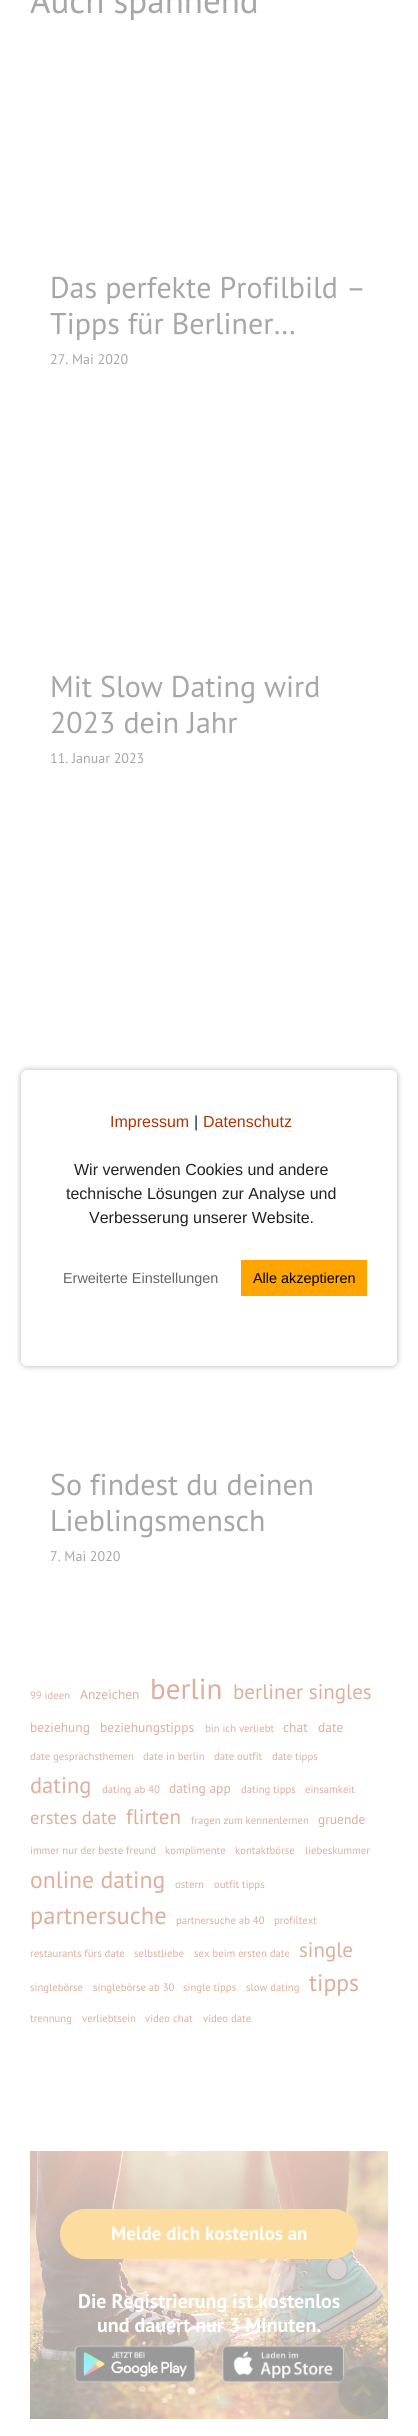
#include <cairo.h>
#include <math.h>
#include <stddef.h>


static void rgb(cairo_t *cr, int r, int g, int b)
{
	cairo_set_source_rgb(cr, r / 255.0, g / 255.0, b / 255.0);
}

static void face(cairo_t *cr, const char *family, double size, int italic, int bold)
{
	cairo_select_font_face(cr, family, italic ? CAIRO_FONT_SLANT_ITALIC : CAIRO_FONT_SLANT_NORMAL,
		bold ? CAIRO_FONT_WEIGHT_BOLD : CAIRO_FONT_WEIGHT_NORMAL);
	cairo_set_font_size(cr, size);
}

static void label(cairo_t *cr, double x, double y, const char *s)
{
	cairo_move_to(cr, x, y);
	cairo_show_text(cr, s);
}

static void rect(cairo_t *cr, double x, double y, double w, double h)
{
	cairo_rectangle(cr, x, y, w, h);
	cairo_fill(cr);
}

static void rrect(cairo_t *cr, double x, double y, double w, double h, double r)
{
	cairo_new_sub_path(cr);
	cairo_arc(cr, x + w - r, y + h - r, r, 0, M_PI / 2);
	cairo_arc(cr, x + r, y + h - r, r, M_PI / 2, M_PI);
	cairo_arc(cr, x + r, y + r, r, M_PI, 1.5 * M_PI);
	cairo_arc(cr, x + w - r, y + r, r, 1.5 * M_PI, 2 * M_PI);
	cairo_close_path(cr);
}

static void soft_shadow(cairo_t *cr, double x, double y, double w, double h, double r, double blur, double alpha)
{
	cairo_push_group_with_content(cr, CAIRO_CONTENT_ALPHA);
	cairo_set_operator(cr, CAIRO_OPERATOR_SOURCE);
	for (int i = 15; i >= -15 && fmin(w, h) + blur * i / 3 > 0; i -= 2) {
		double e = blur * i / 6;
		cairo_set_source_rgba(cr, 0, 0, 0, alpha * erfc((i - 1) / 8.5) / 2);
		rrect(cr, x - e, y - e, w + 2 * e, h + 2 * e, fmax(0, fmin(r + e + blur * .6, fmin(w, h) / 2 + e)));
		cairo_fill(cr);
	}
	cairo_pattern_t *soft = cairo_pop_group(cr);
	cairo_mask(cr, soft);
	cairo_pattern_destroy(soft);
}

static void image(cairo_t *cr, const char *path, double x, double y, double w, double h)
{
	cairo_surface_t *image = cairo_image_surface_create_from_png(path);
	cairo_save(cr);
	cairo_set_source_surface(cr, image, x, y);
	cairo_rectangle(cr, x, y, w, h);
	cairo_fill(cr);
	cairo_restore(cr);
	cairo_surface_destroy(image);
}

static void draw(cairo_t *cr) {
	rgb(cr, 255, 255, 255);
	cairo_paint(cr);
	face(cr, "PT Sans", 35, 0, 0);
	rgb(cr, 167, 167, 167);
	label(cr, 30, 13, "Auch spannend");
	face(cr, "PT Sans", 30, 0, 0);
	label(cr, 50, 298, "Das perfekte Profilbild –");
	label(cr, 50, 334, "Tipps für Berliner…");
	face(cr, "PT Sans", 14, 0, 0);
	label(cr, 50, 364, "27. Mai 2020");
	face(cr, "PT Sans", 30, 0, 0);
	label(cr, 50, 697, "Mit Slow Dating wird");
	label(cr, 50, 733, "2023 dein Jahr");
	face(cr, "PT Sans", 14, 0, 0);
	label(cr, 50, 763, "11. Januar 2023");
	face(cr, "PT Sans", 30, 0, 0);
	label(cr, 50, 1495, "So findest du deinen");
	label(cr, 50, 1531, "Lieblingsmensch");
	face(cr, "PT Sans", 14, 0, 0);
	label(cr, 50, 1561, "7. Mai 2020");
	face(cr, "PT Sans", 10.75, 0, 0);
	rgb(cr, 221, 175, 156);
	label(cr, 30, 1699, "99 ideen");
	face(cr, "PT Sans", 13.5, 0, 0);
	label(cr, 80, 1699, "Anzeichen");
	face(cr, "PT Sans", 29, 0, 0);
	label(cr, 150, 1699, "berlin");
	face(cr, "PT Sans", 21, 0, 0);
	label(cr, 233, 1699, "berliner singles");
	face(cr, "PT Sans", 13.5, 0, 0);
	label(cr, 30, 1732, "beziehung");
	label(cr, 100, 1732, "beziehungstipps");
	face(cr, "PT Sans", 10.75, 0, 0);
	label(cr, 205, 1732, "bin ich verliebt");
	face(cr, "PT Sans", 13.5, 0, 0);
	label(cr, 283, 1732, "chat");
	label(cr, 318, 1732, "date");
	face(cr, "PT Sans", 10.75, 0, 0);
	label(cr, 30, 1760, "date gesprächsthemen");
	label(cr, 143, 1760, "date in berlin");
	label(cr, 214, 1760, "date outfit");
	label(cr, 272, 1760, "date tipps");
	face(cr, "PT Sans", 22.5, 0, 0);
	label(cr, 30, 1793, "dating");
	face(cr, "PT Sans", 10.75, 0, 0);
	label(cr, 102, 1793, "dating ab 40");
	face(cr, "PT Sans", 13.5, 0, 0);
	label(cr, 169, 1793, "dating app");
	face(cr, "PT Sans", 10.75, 0, 0);
	label(cr, 241, 1793, "dating tipps");
	label(cr, 305, 1793, "einsamkeit");
	face(cr, "PT Sans", 18.5, 0, 0);
	label(cr, 30, 1824, "erstes date");
	face(cr, "PT Sans", 21, 0, 0);
	label(cr, 126, 1824, "flirten");
	face(cr, "PT Sans", 10.75, 0, 0);
	label(cr, 191, 1824, "fragen zum kennenlernen");
	face(cr, "PT Sans", 13.5, 0, 0);
	label(cr, 318, 1824, "gruende");
	face(cr, "PT Sans", 10.75, 0, 0);
	label(cr, 30, 1854, "immer nur der beste freund");
	label(cr, 165, 1854, "komplimente");
	label(cr, 235, 1854, "kontaktbörse");
	label(cr, 305, 1854, "liebeskummer");
	face(cr, "PT Sans", 23.75, 0, 0);
	label(cr, 30, 1888, "online dating");
	face(cr, "PT Sans", 10.75, 0, 0);
	label(cr, 175, 1888, "ostern");
	label(cr, 214, 1888, "outfit tipps");
	face(cr, "PT Sans", 24.5, 0, 0);
	label(cr, 30, 1924, "partnersuche");
	face(cr, "PT Sans", 10.75, 0, 0);
	label(cr, 176, 1924, "partnersuche ab 40");
	label(cr, 274, 1924, "profiltext");
	label(cr, 30, 1957, "restaurants fürs date");
	label(cr, 134, 1957, "selbstliebe");
	label(cr, 194, 1957, "sex beim ersten date");
	face(cr, "PT Sans", 21, 0, 0);
	label(cr, 299, 1957, "single");
	face(cr, "PT Sans", 10.75, 0, 0);
	label(cr, 30, 1991, "singlebörse");
	label(cr, 93, 1991, "singlebörse ab 30");
	label(cr, 183, 1991, "single tipps");
	label(cr, 246, 1991, "slow dating");
	face(cr, "PT Sans", 23.75, 0, 0);
	label(cr, 309, 1991, "tipps");
	face(cr, "PT Sans", 10.75, 0, 0);
	label(cr, 30, 2022, "trennung");
	label(cr, 82, 2022, "verliebtsein");
	label(cr, 145, 2022, "video chat");
	label(cr, 203, 2022, "video date");
	image(cr, "image0.png", 30, 2151, 358, 268);
	rgb(cr, 252, 221, 159);
	rrect(cr, 60.5, 2209.5, 297, 49, 24.5);
	cairo_fill_preserve(cr);
	cairo_set_line_width(cr, 1);
	cairo_stroke(cr);
	face(cr, "PT Sans", 19, 0, 1);
	rgb(cr, 255, 255, 255);
	label(cr, 111, 2240, "Melde dich kostenlos an");
	face(cr, "PT Sans", 20, 0, 1);
	label(cr, 78, 2308, "Die Registrierung ist kostenlos");
	label(cr, 97, 2332, "und dauert nur 3 Minuten.");
	image(cr, "image1.png", 74, 2345, 122, 38);
	image(cr, "image2.png", 222, 2345, 122, 38);
	rgb(cr, 0, 0, 0);
	soft_shadow(cr, 21, 1070, 376, 296, 6, 3, 0.3);
	rgb(cr, 255, 255, 255);
	rrect(cr, 21, 1070, 376, 296, 6);
	cairo_fill(cr);
	face(cr, "Liberation Sans", 16, 0, 0);
	rgb(cr, 171, 54, 7);
	label(cr, 110, 1127, "Impressum");
	rgb(cr, 34, 34, 34);
	label(cr, 194, 1127, "|");
	rgb(cr, 171, 54, 7);
	label(cr, 203, 1127, "Datenschutz");
	rgb(cr, 34, 34, 34);
	label(cr, 74, 1175, "Wir verwenden Cookies und andere");
	label(cr, 66, 1199, "technische Lösungen zur Analyse und");
	label(cr, 89, 1223, "Verbesserung unserer Website.");
	face(cr, "Liberation Sans", 14.4, 0, 0);
	rgb(cr, 102, 102, 102);
	label(cr, 63, 1283, "Erweiterte Einstellungen");
	rgb(cr, 255, 165, 0);
	rect(cr, 241, 1260, 126, 36);
	rgb(cr, 0, 0, 0);
	label(cr, 253, 1283, "Alle akzeptieren");
	image(cr, "image3.png", 338, 2366, 50, 50);
}

int main(void) {
	cairo_surface_t *surface = cairo_image_surface_create(CAIRO_FORMAT_RGB24, 418, 2436);
	cairo_t *cr = cairo_create(surface);
	cairo_font_options_t *options = cairo_font_options_create();
	cairo_font_options_set_hint_metrics(options, CAIRO_HINT_METRICS_OFF);
	cairo_font_options_set_hint_style(options, CAIRO_HINT_STYLE_NONE);
	cairo_set_font_options(cr, options);
	cairo_set_miter_limit(cr, 4);
	draw(cr);
	cairo_surface_write_to_png(surface, "render.png");
	cairo_font_options_destroy(options);
	cairo_destroy(cr);
	cairo_surface_destroy(surface);
	return 0;
}
